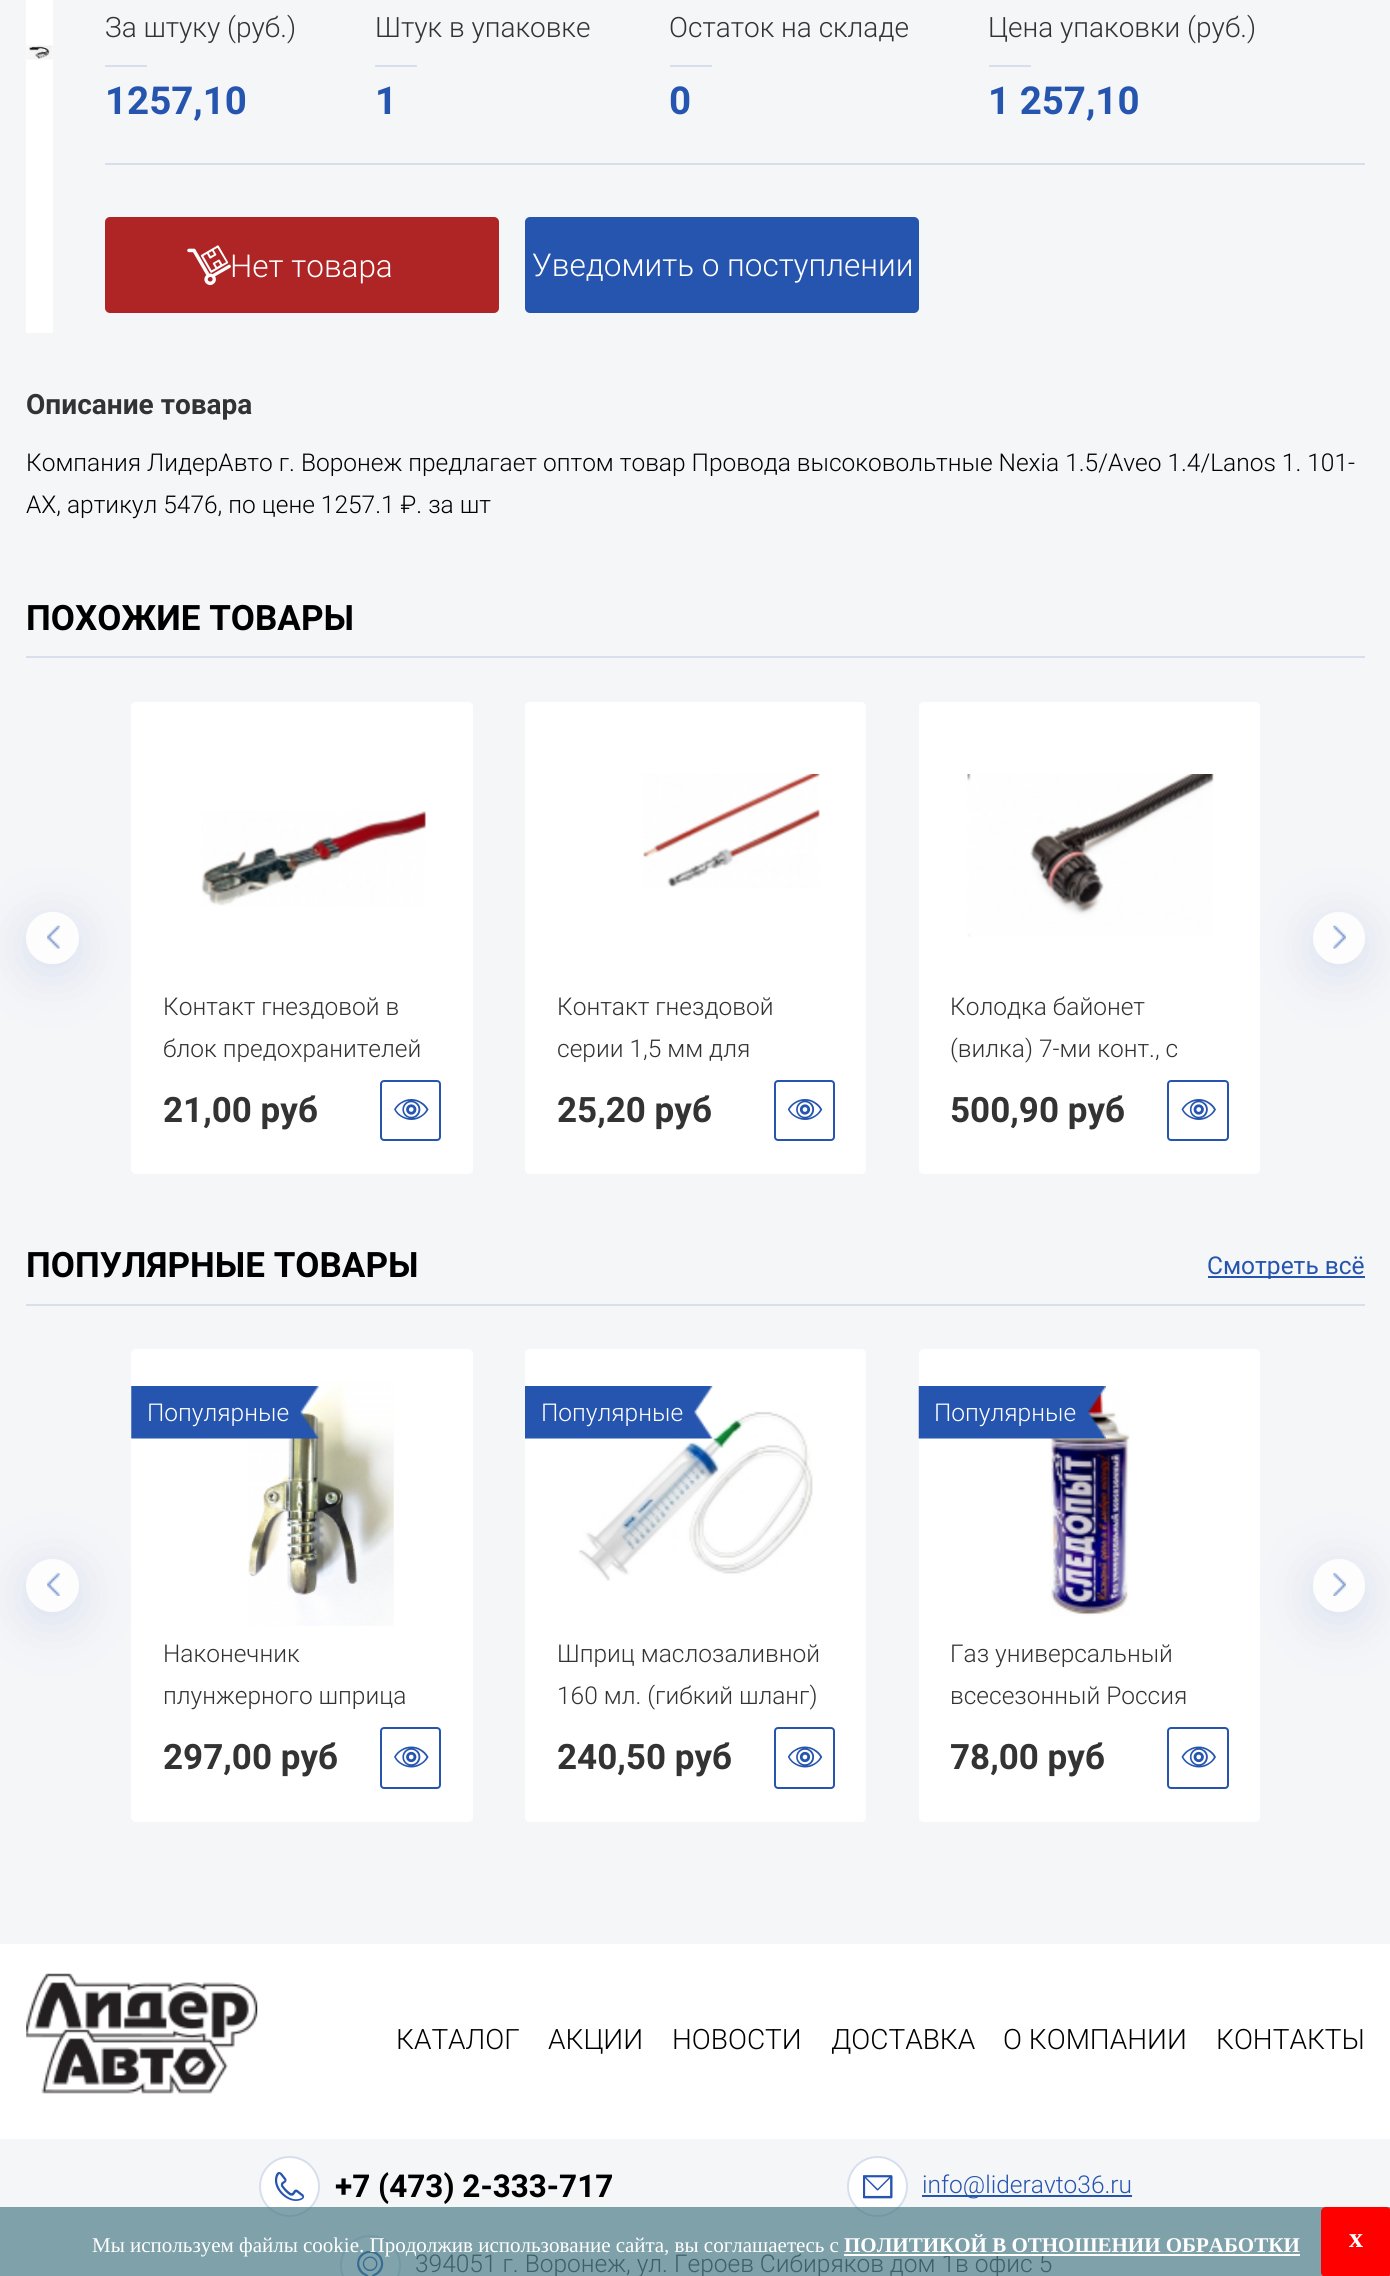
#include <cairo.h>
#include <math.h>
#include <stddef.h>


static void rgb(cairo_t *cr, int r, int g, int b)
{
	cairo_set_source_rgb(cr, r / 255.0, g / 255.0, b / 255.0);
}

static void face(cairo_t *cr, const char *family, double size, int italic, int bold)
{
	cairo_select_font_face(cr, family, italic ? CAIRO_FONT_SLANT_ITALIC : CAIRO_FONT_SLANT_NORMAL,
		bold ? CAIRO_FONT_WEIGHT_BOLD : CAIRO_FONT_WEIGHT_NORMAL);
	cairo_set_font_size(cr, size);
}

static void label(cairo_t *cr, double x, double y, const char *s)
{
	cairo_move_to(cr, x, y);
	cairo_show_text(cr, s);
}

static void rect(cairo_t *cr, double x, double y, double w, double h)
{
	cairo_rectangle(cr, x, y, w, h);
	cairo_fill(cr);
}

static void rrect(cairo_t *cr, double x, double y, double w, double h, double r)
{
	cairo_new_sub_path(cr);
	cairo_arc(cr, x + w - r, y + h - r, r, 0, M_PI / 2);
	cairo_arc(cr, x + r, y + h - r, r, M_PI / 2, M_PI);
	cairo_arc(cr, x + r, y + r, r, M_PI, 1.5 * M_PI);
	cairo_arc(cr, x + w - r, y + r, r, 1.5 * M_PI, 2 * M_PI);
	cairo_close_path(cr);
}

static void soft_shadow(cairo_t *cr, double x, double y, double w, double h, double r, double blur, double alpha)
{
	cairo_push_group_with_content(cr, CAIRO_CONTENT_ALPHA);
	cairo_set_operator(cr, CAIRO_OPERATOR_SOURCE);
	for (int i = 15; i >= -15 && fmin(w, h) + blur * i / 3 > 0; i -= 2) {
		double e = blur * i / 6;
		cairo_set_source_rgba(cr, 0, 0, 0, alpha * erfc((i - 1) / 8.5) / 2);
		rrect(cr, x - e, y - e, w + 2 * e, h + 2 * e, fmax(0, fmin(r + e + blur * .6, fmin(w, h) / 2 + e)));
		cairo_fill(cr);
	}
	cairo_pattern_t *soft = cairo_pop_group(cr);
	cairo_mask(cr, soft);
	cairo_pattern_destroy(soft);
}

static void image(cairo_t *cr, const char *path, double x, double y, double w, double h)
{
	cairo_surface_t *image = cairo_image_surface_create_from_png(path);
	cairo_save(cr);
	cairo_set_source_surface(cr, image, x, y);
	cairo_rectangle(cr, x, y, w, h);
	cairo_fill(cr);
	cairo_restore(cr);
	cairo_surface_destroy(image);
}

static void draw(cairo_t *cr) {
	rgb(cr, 245, 246, 248);
	cairo_paint(cr);
	rgb(cr, 255, 255, 255);
	rect(cr, 26, 0, 27, 333);
	image(cr, "image0.png", 26, 45, 27, 15);
	rgb(cr, 215, 223, 237);
	rect(cr, 105, 163, 1260, 2);
	face(cr, "Roboto Light", 28, 0, 0);
	rgb(cr, 51, 51, 51);
	label(cr, 105, 37, "За штуку (руб.)");
	rgb(cr, 215, 223, 237);
	rect(cr, 105, 65, 42, 2);
	face(cr, "Roboto", 38.5, 0, 1);
	rgb(cr, 37, 85, 175);
	label(cr, 105, 114, "1257,10");
	face(cr, "Roboto Light", 28, 0, 0);
	rgb(cr, 51, 51, 51);
	label(cr, 375, 37, "Штук в упаковке");
	rgb(cr, 215, 223, 237);
	rect(cr, 375, 65, 42, 2);
	face(cr, "Roboto", 38.5, 0, 1);
	rgb(cr, 37, 85, 175);
	label(cr, 375, 114, "1");
	face(cr, "Roboto Light", 28, 0, 0);
	rgb(cr, 51, 51, 51);
	label(cr, 669, 37, "Остаток на складе");
	rgb(cr, 215, 223, 237);
	rect(cr, 670, 65, 42, 2);
	face(cr, "Roboto", 38.5, 0, 1);
	rgb(cr, 37, 85, 175);
	label(cr, 669, 114, "0");
	face(cr, "Roboto Light", 28, 0, 0);
	rgb(cr, 51, 51, 51);
	label(cr, 988, 37, "Цена упаковки (руб.)");
	rgb(cr, 215, 223, 237);
	rect(cr, 989, 65, 42, 2);
	face(cr, "Roboto", 38.5, 0, 1);
	rgb(cr, 37, 85, 175);
	label(cr, 988, 114, "1 257,10");
	rgb(cr, 175, 37, 37);
	rrect(cr, 105, 217, 394, 96, 5);
	cairo_fill(cr);
	image(cr, "image1.png", 187, 245, 44, 41);
	face(cr, "Roboto Light", 31.5, 0, 0);
	rgb(cr, 255, 255, 255);
	label(cr, 230, 277, "Нет товара");
	rgb(cr, 37, 85, 175);
	rrect(cr, 525, 217, 394, 96, 5);
	cairo_fill(cr);
	rgb(cr, 255, 255, 255);
	label(cr, 532, 276, "Уведомить о поступлении");
	face(cr, "Roboto", 28, 0, 1);
	rgb(cr, 51, 51, 51);
	label(cr, 26, 414, "Описание товара");
	face(cr, "Roboto Light", 24.5, 0, 0);
	rgb(cr, 0, 0, 0);
	label(cr, 26, 471, "Компания ЛидерАвто г. Воронеж предлагает оптом товар Провода высоковольтные Nexia 1.5/Aveo 1.4/Lanos 1. 101-");
	label(cr, 26, 513, "АХ, артикул 5476, по цене 1257.1 ₽. за шт");
	rgb(cr, 215, 223, 237);
	rect(cr, 26, 656, 1339, 2);
	face(cr, "Roboto", 35, 0, 1);
	rgb(cr, 0, 0, 0);
	label(cr, 26, 630, "ПОХОЖИЕ ТОВАРЫ");
	rgb(cr, 89, 125, 193);
	soft_shadow(cr, 26, 921, 53, 52, 26, 25.5, 0.18);
	rgb(cr, 253, 253, 253);
	rrect(cr, 26, 912, 53, 52, 26);
	cairo_fill(cr);
	image(cr, "image2.png", 47, 925, 13, 24);
	rgb(cr, 255, 255, 255);
	rrect(cr, 131, 702, 342, 472, 5);
	cairo_fill(cr);
	image(cr, "image3.png", 201, 811, 225, 95);
	face(cr, "Roboto Light", 24.5, 0, 0);
	rgb(cr, 51, 51, 51);
	label(cr, 163, 1015, "Контакт гнездовой в");
	label(cr, 163, 1057, "блок предохранителей");
	face(cr, "Roboto", 35, 0, 1);
	label(cr, 163, 1122, "21,00 руб");
	image(cr, "image4.png", 394, 1099, 35, 21);
	rrect(cr, 381, 1081, 59, 59, 3);
	rgb(cr, 37, 85, 175);
	cairo_stroke(cr);
	rgb(cr, 255, 255, 255);
	rrect(cr, 525, 702, 341, 472, 5);
	cairo_fill(cr);
	image(cr, "image5.png", 643, 774, 177, 114);
	face(cr, "Roboto Light", 24.5, 0, 0);
	rgb(cr, 51, 51, 51);
	label(cr, 557, 1015, "Контакт гнездовой");
	label(cr, 557, 1057, "серии 1,5 мм для");
	face(cr, "Roboto", 35, 0, 1);
	label(cr, 557, 1122, "25,20 руб");
	image(cr, "image6.png", 788, 1099, 35, 21);
	rrect(cr, 775, 1081, 59, 59, 3);
	rgb(cr, 37, 85, 175);
	cairo_stroke(cr);
	rgb(cr, 255, 255, 255);
	rrect(cr, 919, 702, 341, 472, 5);
	cairo_fill(cr);
	image(cr, "image7.png", 967, 774, 247, 163);
	face(cr, "Roboto Light", 24.5, 0, 0);
	rgb(cr, 51, 51, 51);
	label(cr, 950, 1015, "Колодка байонет");
	label(cr, 950, 1057, "(вилка) 7-ми конт., с");
	face(cr, "Roboto", 35, 0, 1);
	label(cr, 950, 1122, "500,90 руб");
	image(cr, "image8.png", 1181, 1099, 35, 21);
	rrect(cr, 1168, 1081, 60, 59, 3);
	rgb(cr, 37, 85, 175);
	cairo_stroke(cr);
	rgb(cr, 89, 125, 193);
	soft_shadow(cr, 1313, 921, 52, 52, 26, 25.5, 0.18);
	rgb(cr, 253, 253, 253);
	cairo_arc(cr, 1339, 938, 26, 0, 2 * M_PI);
	cairo_fill(cr);
	image(cr, "image9.png", 1333, 925, 13, 24);
	rgb(cr, 215, 223, 237);
	rect(cr, 26, 1304, 1339, 2);
	rgb(cr, 0, 0, 0);
	label(cr, 26, 1277, "ПОПУЛЯРНЫЕ ТОВАРЫ");
	rgb(cr, 37, 85, 175);
	rect(cr, 1208, 1276, 157, 2);
	face(cr, "Roboto", 24.5, 0, 0);
	label(cr, 1207, 1274, "Смотреть всё");
	rgb(cr, 89, 125, 193);
	soft_shadow(cr, 26, 1568, 53, 53, 26.5, 25.5, 0.18);
	rgb(cr, 253, 253, 253);
	cairo_arc(cr, 52.5, 1585.5, 26.5, 0, 2 * M_PI);
	cairo_fill(cr);
	image(cr, "image10.png", 47, 1573, 13, 23);
	rgb(cr, 255, 255, 255);
	rrect(cr, 131, 1349, 342, 473, 5);
	cairo_fill(cr);
	image(cr, "image12.png", 248, 1381, 146, 245);
	image(cr, "image11.png", 131, 1386, 188, 53);
	face(cr, "Roboto Light", 24.5, 0, 0);
	label(cr, 147, 1421, "Популярные");
	rgb(cr, 51, 51, 51);
	label(cr, 163, 1662, "Наконечник");
	label(cr, 163, 1704, "плунжерного шприца");
	face(cr, "Roboto", 35, 0, 1);
	label(cr, 163, 1769, "297,00 руб");
	image(cr, "image13.png", 394, 1746, 35, 22);
	rrect(cr, 381, 1728, 59, 60, 3);
	rgb(cr, 37, 85, 175);
	cairo_stroke(cr);
	rgb(cr, 255, 255, 255);
	rrect(cr, 525, 1349, 341, 473, 5);
	cairo_fill(cr);
	image(cr, "image15.png", 578, 1411, 235, 170);
	image(cr, "image14.png", 525, 1386, 188, 53);
	face(cr, "Roboto Light", 24.5, 0, 0);
	label(cr, 541, 1421, "Популярные");
	rgb(cr, 51, 51, 51);
	label(cr, 557, 1662, "Шприц маслозаливной");
	label(cr, 557, 1704, "160 мл. (гибкий шланг)");
	face(cr, "Roboto", 35, 0, 1);
	label(cr, 557, 1769, "240,50 руб");
	image(cr, "image16.png", 788, 1746, 35, 22);
	rrect(cr, 775, 1728, 59, 60, 3);
	rgb(cr, 37, 85, 175);
	cairo_stroke(cr);
	rgb(cr, 255, 255, 255);
	rrect(cr, 919, 1349, 341, 473, 5);
	cairo_fill(cr);
	image(cr, "image18.png", 1049, 1390, 81, 226);
	image(cr, "image17.png", 918, 1386, 188, 53);
	face(cr, "Roboto Light", 24.5, 0, 0);
	label(cr, 934, 1421, "Популярные");
	rgb(cr, 51, 51, 51);
	label(cr, 950, 1662, "Газ универсальный");
	label(cr, 950, 1704, "всесезонный Россия");
	face(cr, "Roboto", 35, 0, 1);
	label(cr, 950, 1769, "78,00 руб");
	image(cr, "image19.png", 1181, 1746, 35, 22);
	rrect(cr, 1168, 1728, 60, 60, 3);
	rgb(cr, 37, 85, 175);
	cairo_stroke(cr);
	rgb(cr, 89, 125, 193);
	soft_shadow(cr, 1313, 1568, 52, 53, 26, 25.5, 0.18);
	rgb(cr, 253, 253, 253);
	rrect(cr, 1313, 1559, 52, 53, 26);
	cairo_fill(cr);
	image(cr, "image20.png", 1333, 1573, 13, 23);
	rgb(cr, 255, 255, 255);
	rect(cr, 0, 1944, 1390, 195);
	image(cr, "image21.png", 26, 1973, 232, 121);
	face(cr, "Roboto Light", 28, 0, 0);
	rgb(cr, 0, 0, 0);
	label(cr, 396, 2049, "КАТАЛОГ");
	label(cr, 548, 2049, "АКЦИИ");
	label(cr, 672, 2049, "НОВОСТИ");
	label(cr, 831, 2049, "ДОСТАВКА");
	label(cr, 1003, 2049, "О КОМПАНИИ");
	label(cr, 1216, 2049, "КОНТАКТЫ");
	rgb(cr, 255, 255, 255);
	cairo_new_path(cr);
	cairo_arc(cr, 289.5, 2186.5, 29.5, 0, 2 * M_PI);
	cairo_fill_preserve(cr);
	rgb(cr, 215, 223, 237);
	cairo_stroke(cr);
	image(cr, "image22.png", 275, 2172, 30, 29);
	face(cr, "Roboto", 31.5, 0, 1);
	rgb(cr, 0, 0, 0);
	label(cr, 335, 2197, "+7 (473) 2-333-717");
	rgb(cr, 255, 255, 255);
	cairo_new_path(cr);
	cairo_arc(cr, 877.5, 2186.5, 29.5, 0, 2 * M_PI);
	cairo_fill_preserve(cr);
	rgb(cr, 215, 223, 237);
	cairo_stroke(cr);
	image(cr, "image23.png", 863, 2175, 30, 24);
	rgb(cr, 37, 85, 175);
	rect(cr, 922, 2195, 210, 2);
	face(cr, "Roboto Light", 24.5, 0, 0);
	label(cr, 922, 2193, "info@lideravto36.ru");
	rgb(cr, 255, 255, 255);
	cairo_new_path(cr);
	cairo_arc(cr, 370.5, 2265.5, 29.5, 0, 2 * M_PI);
	cairo_fill_preserve(cr);
	rgb(cr, 215, 223, 237);
	cairo_stroke(cr);
	image(cr, "image24.png", 357, 2251, 27, 25);
	rgb(cr, 51, 51, 51);
	label(cr, 415, 2272, "394051 г. Воронеж, ул. Героев Сибиряков дом 1в офис 5");
	cairo_set_source_rgba(cr, 0.267, 0.471, 0.518, 0.67);
	rect(cr, 0, 2207, 1390, 69);
	face(cr, "Liberation Serif", 21, 0, 0);
	rgb(cr, 255, 255, 255);
	label(cr, 92, 2252, "Мы используем файлы cookie. Продолжив использование сайта, вы соглашаетесь с");
	rect(cr, 844, 2254, 456, 2);
	face(cr, "Liberation Serif", 21, 0, 1);
	label(cr, 844, 2252, "ПОЛИТИКОЙ В ОТНОШЕНИИ ОБРАБОТКИ");
	rgb(cr, 255, 0, 0);
	rrect(cr, 1321, 2207, 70, 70, 5);
	cairo_fill(cr);
	face(cr, "Liberation Serif", 28, 0, 1);
	rgb(cr, 255, 255, 255);
	label(cr, 1349, 2247, "x");
}

int main(void) {
	cairo_surface_t *surface = cairo_image_surface_create(CAIRO_FORMAT_RGB24, 1390, 2276);
	cairo_t *cr = cairo_create(surface);
	cairo_font_options_t *options = cairo_font_options_create();
	cairo_font_options_set_hint_metrics(options, CAIRO_HINT_METRICS_OFF);
	cairo_font_options_set_hint_style(options, CAIRO_HINT_STYLE_NONE);
	cairo_set_font_options(cr, options);
	cairo_set_miter_limit(cr, 4);
	draw(cr);
	cairo_surface_write_to_png(surface, "render.png");
	cairo_font_options_destroy(options);
	cairo_destroy(cr);
	cairo_surface_destroy(surface);
	return 0;
}
